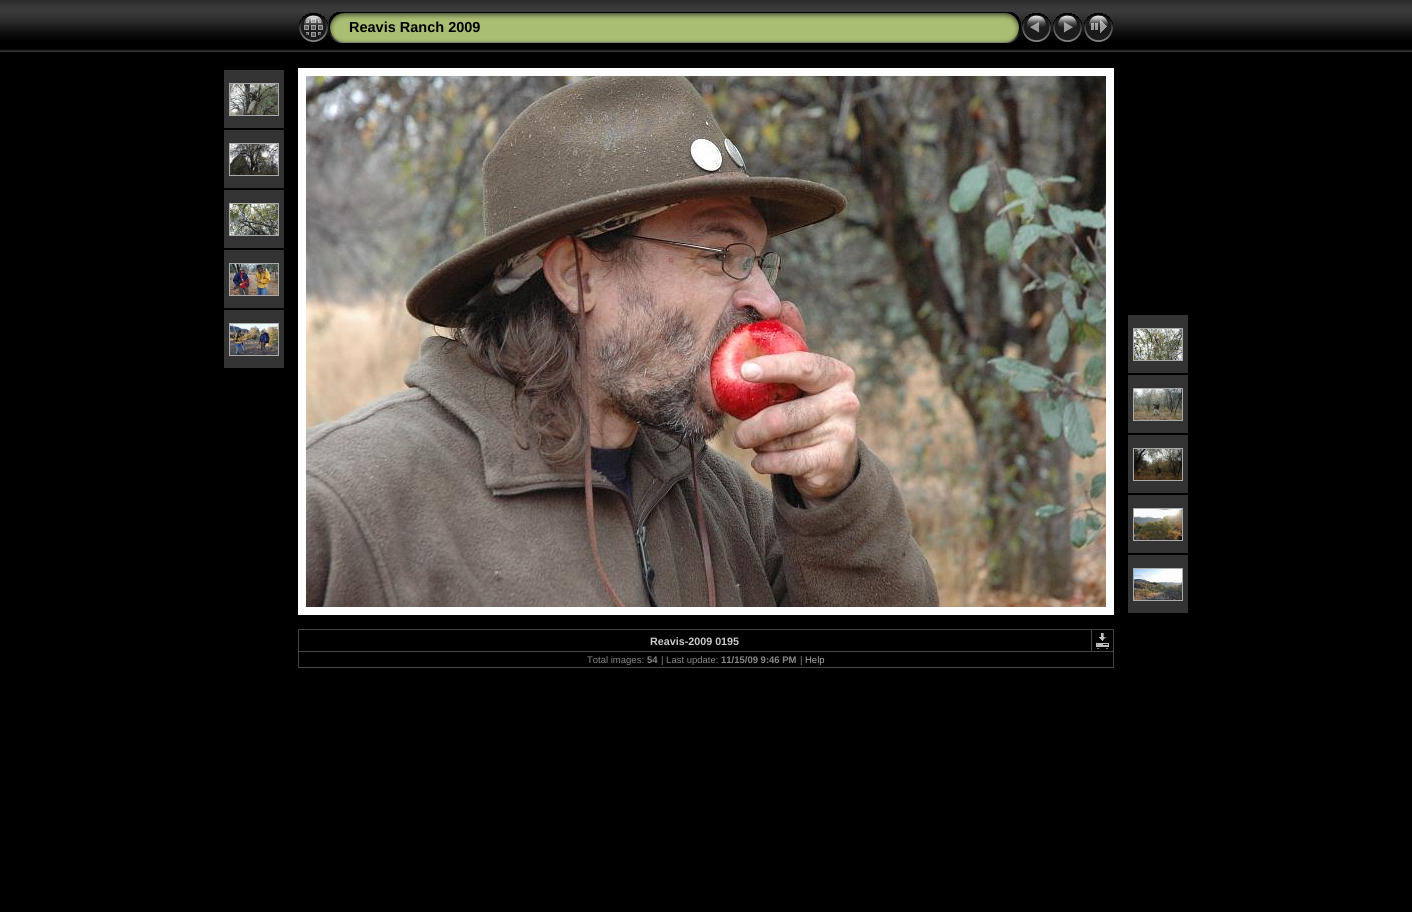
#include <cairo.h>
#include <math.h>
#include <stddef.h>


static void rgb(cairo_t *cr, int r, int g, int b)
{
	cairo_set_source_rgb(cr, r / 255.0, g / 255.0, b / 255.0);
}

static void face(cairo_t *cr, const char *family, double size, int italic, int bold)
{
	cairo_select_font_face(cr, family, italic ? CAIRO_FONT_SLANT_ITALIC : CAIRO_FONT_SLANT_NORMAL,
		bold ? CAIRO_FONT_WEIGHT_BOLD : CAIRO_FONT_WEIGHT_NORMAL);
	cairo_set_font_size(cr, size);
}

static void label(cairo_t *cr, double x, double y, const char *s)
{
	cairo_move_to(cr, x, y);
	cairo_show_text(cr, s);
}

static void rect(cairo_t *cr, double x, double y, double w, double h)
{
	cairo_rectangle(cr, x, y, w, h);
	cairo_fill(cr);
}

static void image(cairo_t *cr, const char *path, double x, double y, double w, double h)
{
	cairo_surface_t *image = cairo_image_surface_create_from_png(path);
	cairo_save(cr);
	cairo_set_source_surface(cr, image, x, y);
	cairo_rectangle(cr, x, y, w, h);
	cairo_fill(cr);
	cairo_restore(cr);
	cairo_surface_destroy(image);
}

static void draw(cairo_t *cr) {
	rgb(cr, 0, 0, 0);
	cairo_paint(cr);
	image(cr, "image0.png", 0, 0, 1412, 52);
	image(cr, "image1.png", 299, 13, 29, 29);
	image(cr, "image2.png", 329, 12, 20, 31);
	image(cr, "image3.png", 349, 12, 652, 31);
	face(cr, "Liberation Sans", 14.5, 0, 1);
	rgb(cr, 0, 0, 0);
	label(cr, 349, 32, "Reavis Ranch 2009");
	image(cr, "image4.png", 1001, 12, 20, 31);
	image(cr, "image5.png", 1022, 13, 29, 29);
	image(cr, "image6.png", 1053, 13, 29, 29);
	image(cr, "image7.png", 1084, 13, 29, 29);
	rgb(cr, 51, 51, 51);
	rect(cr, 224, 70, 60, 58);
	cairo_rectangle(cr, 229.5, 83.5, 49, 32);
	rgb(cr, 170, 170, 170);
	cairo_set_line_width(cr, 1);
	cairo_stroke(cr);
	image(cr, "image8.png", 230, 84, 48, 31);
	rgb(cr, 51, 51, 51);
	rect(cr, 224, 130, 60, 58);
	cairo_rectangle(cr, 229.5, 143.5, 49, 32);
	rgb(cr, 170, 170, 170);
	cairo_stroke(cr);
	image(cr, "image9.png", 230, 144, 48, 31);
	rgb(cr, 51, 51, 51);
	rect(cr, 224, 190, 60, 58);
	cairo_rectangle(cr, 229.5, 203.5, 49, 32);
	rgb(cr, 170, 170, 170);
	cairo_stroke(cr);
	image(cr, "image10.png", 230, 204, 48, 31);
	rgb(cr, 51, 51, 51);
	rect(cr, 224, 250, 60, 58);
	cairo_rectangle(cr, 229.5, 263.5, 49, 32);
	rgb(cr, 170, 170, 170);
	cairo_stroke(cr);
	image(cr, "image11.png", 230, 264, 48, 31);
	rgb(cr, 51, 51, 51);
	rect(cr, 224, 310, 60, 58);
	cairo_rectangle(cr, 229.5, 323.5, 49, 32);
	rgb(cr, 170, 170, 170);
	cairo_stroke(cr);
	image(cr, "image12.png", 230, 324, 48, 31);
	cairo_rectangle(cr, 302, 72, 808, 539);
	rgb(cr, 255, 255, 255);
	cairo_set_line_width(cr, 8);
	cairo_stroke(cr);
	image(cr, "image13.png", 306, 76, 800, 531);
	rgb(cr, 51, 51, 51);
	rect(cr, 1128, 315, 60, 58);
	cairo_rectangle(cr, 1133.5, 328.5, 49, 32);
	rgb(cr, 170, 170, 170);
	cairo_set_line_width(cr, 1);
	cairo_stroke(cr);
	image(cr, "image14.png", 1134, 329, 48, 31);
	rgb(cr, 51, 51, 51);
	rect(cr, 1128, 375, 60, 58);
	cairo_rectangle(cr, 1133.5, 388.5, 49, 32);
	rgb(cr, 170, 170, 170);
	cairo_stroke(cr);
	image(cr, "image15.png", 1134, 389, 48, 31);
	rgb(cr, 51, 51, 51);
	rect(cr, 1128, 435, 60, 58);
	cairo_rectangle(cr, 1133.5, 448.5, 49, 32);
	rgb(cr, 170, 170, 170);
	cairo_stroke(cr);
	image(cr, "image16.png", 1134, 449, 48, 31);
	rgb(cr, 51, 51, 51);
	rect(cr, 1128, 495, 60, 58);
	cairo_rectangle(cr, 1133.5, 508.5, 49, 32);
	rgb(cr, 170, 170, 170);
	cairo_stroke(cr);
	image(cr, "image17.png", 1134, 509, 48, 31);
	rgb(cr, 51, 51, 51);
	rect(cr, 1128, 555, 60, 58);
	cairo_rectangle(cr, 1133.5, 568.5, 49, 32);
	rgb(cr, 170, 170, 170);
	cairo_stroke(cr);
	image(cr, "image18.png", 1134, 569, 48, 31);
	rgb(cr, 68, 68, 68);
	rect(cr, 298, 629, 816, 1);
	rect(cr, 1113, 629, 1, 39);
	rect(cr, 298, 667, 816, 1);
	rect(cr, 298, 629, 1, 39);
	face(cr, "Liberation Sans", 10.75, 0, 1);
	rgb(cr, 204, 204, 204);
	label(cr, 650, 645, "Reavis-2009 0195");
	rgb(cr, 68, 68, 68);
	rect(cr, 298, 651, 816, 1);
	rect(cr, 1091, 629, 1, 23);
	image(cr, "image19.png", 1096, 633, 13, 16);
	face(cr, "Liberation Sans", 9.5, 0, 0);
	rgb(cr, 136, 136, 136);
	label(cr, 587, 663, "Total images:");
	face(cr, "Liberation Sans", 9.5, 0, 1);
	label(cr, 647, 663, "54");
	face(cr, "Liberation Sans", 9.5, 0, 0);
	label(cr, 661, 663, "| Last update:");
	face(cr, "Liberation Sans", 9.5, 0, 1);
	label(cr, 721, 663, "11/15/09 9:46 PM");
	face(cr, "Liberation Sans", 9.5, 0, 0);
	label(cr, 800, 663, "|");
	rgb(cr, 170, 170, 170);
	label(cr, 805, 663, "Help");
}

int main(void) {
	cairo_surface_t *surface = cairo_image_surface_create(CAIRO_FORMAT_RGB24, 1412, 912);
	cairo_t *cr = cairo_create(surface);
	cairo_font_options_t *options = cairo_font_options_create();
	cairo_font_options_set_hint_metrics(options, CAIRO_HINT_METRICS_OFF);
	cairo_font_options_set_hint_style(options, CAIRO_HINT_STYLE_NONE);
	cairo_set_font_options(cr, options);
	cairo_set_miter_limit(cr, 4);
	draw(cr);
	cairo_surface_write_to_png(surface, "render.png");
	cairo_font_options_destroy(options);
	cairo_destroy(cr);
	cairo_surface_destroy(surface);
	return 0;
}
